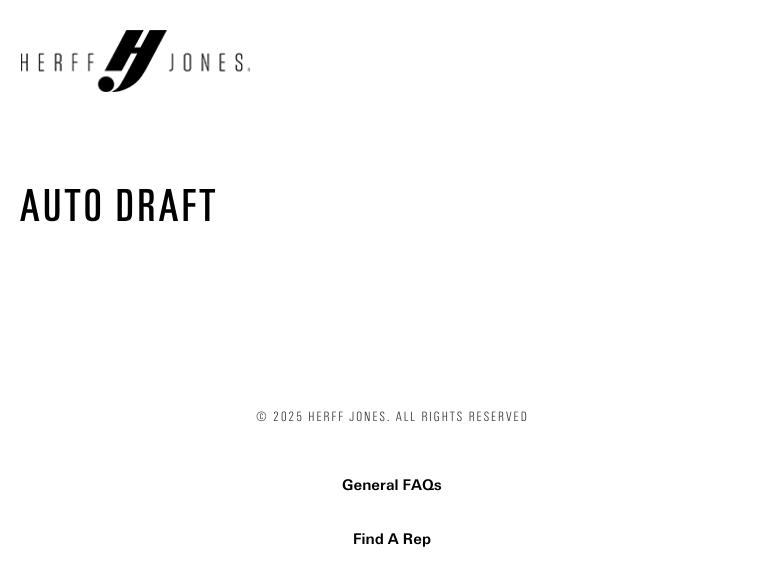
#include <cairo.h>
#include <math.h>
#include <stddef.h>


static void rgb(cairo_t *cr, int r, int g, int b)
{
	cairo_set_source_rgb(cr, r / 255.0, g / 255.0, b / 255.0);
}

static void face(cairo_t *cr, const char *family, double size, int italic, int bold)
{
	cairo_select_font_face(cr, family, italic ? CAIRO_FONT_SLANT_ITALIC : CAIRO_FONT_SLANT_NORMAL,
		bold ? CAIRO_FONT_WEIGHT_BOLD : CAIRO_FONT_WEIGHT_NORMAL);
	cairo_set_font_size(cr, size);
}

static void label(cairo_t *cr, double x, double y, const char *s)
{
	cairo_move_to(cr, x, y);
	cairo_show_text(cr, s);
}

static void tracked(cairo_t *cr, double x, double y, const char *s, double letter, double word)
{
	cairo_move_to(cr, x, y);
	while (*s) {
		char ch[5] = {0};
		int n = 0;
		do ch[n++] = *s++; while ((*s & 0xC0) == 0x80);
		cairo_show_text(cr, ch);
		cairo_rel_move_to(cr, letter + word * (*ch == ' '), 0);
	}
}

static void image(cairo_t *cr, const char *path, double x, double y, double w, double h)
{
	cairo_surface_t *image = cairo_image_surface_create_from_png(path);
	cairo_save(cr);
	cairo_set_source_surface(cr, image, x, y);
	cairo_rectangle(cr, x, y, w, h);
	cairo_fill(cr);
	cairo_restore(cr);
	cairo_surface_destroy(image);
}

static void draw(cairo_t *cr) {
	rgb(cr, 255, 255, 255);
	cairo_paint(cr);
	image(cr, "image0.png", 21, 30, 229, 62);
	face(cr, "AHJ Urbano", 48, 0, 0);
	rgb(cr, 0, 0, 0);
	tracked(cr, 20, 221, "AUTO DRAFT", 3, 0);
	face(cr, "AHJ Urbano Light", 14, 0, 0);
	rgb(cr, 44, 41, 36);
	tracked(cr, 256, 421, "© 2025 HERFF JONES. ALL RIGHTS RESERVED", 2, 0);
	face(cr, "AHJ Urbano", 16, 0, 1);
	rgb(cr, 0, 0, 0);
	label(cr, 342, 490, "General FAQs");
	label(cr, 353, 544, "Find A Rep");
}

int main(void) {
	cairo_surface_t *surface = cairo_image_surface_create(CAIRO_FORMAT_RGB24, 784, 588);
	cairo_t *cr = cairo_create(surface);
	cairo_font_options_t *options = cairo_font_options_create();
	cairo_font_options_set_hint_metrics(options, CAIRO_HINT_METRICS_OFF);
	cairo_font_options_set_hint_style(options, CAIRO_HINT_STYLE_NONE);
	cairo_set_font_options(cr, options);
	cairo_set_miter_limit(cr, 4);
	draw(cr);
	cairo_surface_write_to_png(surface, "render.png");
	cairo_font_options_destroy(options);
	cairo_destroy(cr);
	cairo_surface_destroy(surface);
	return 0;
}
